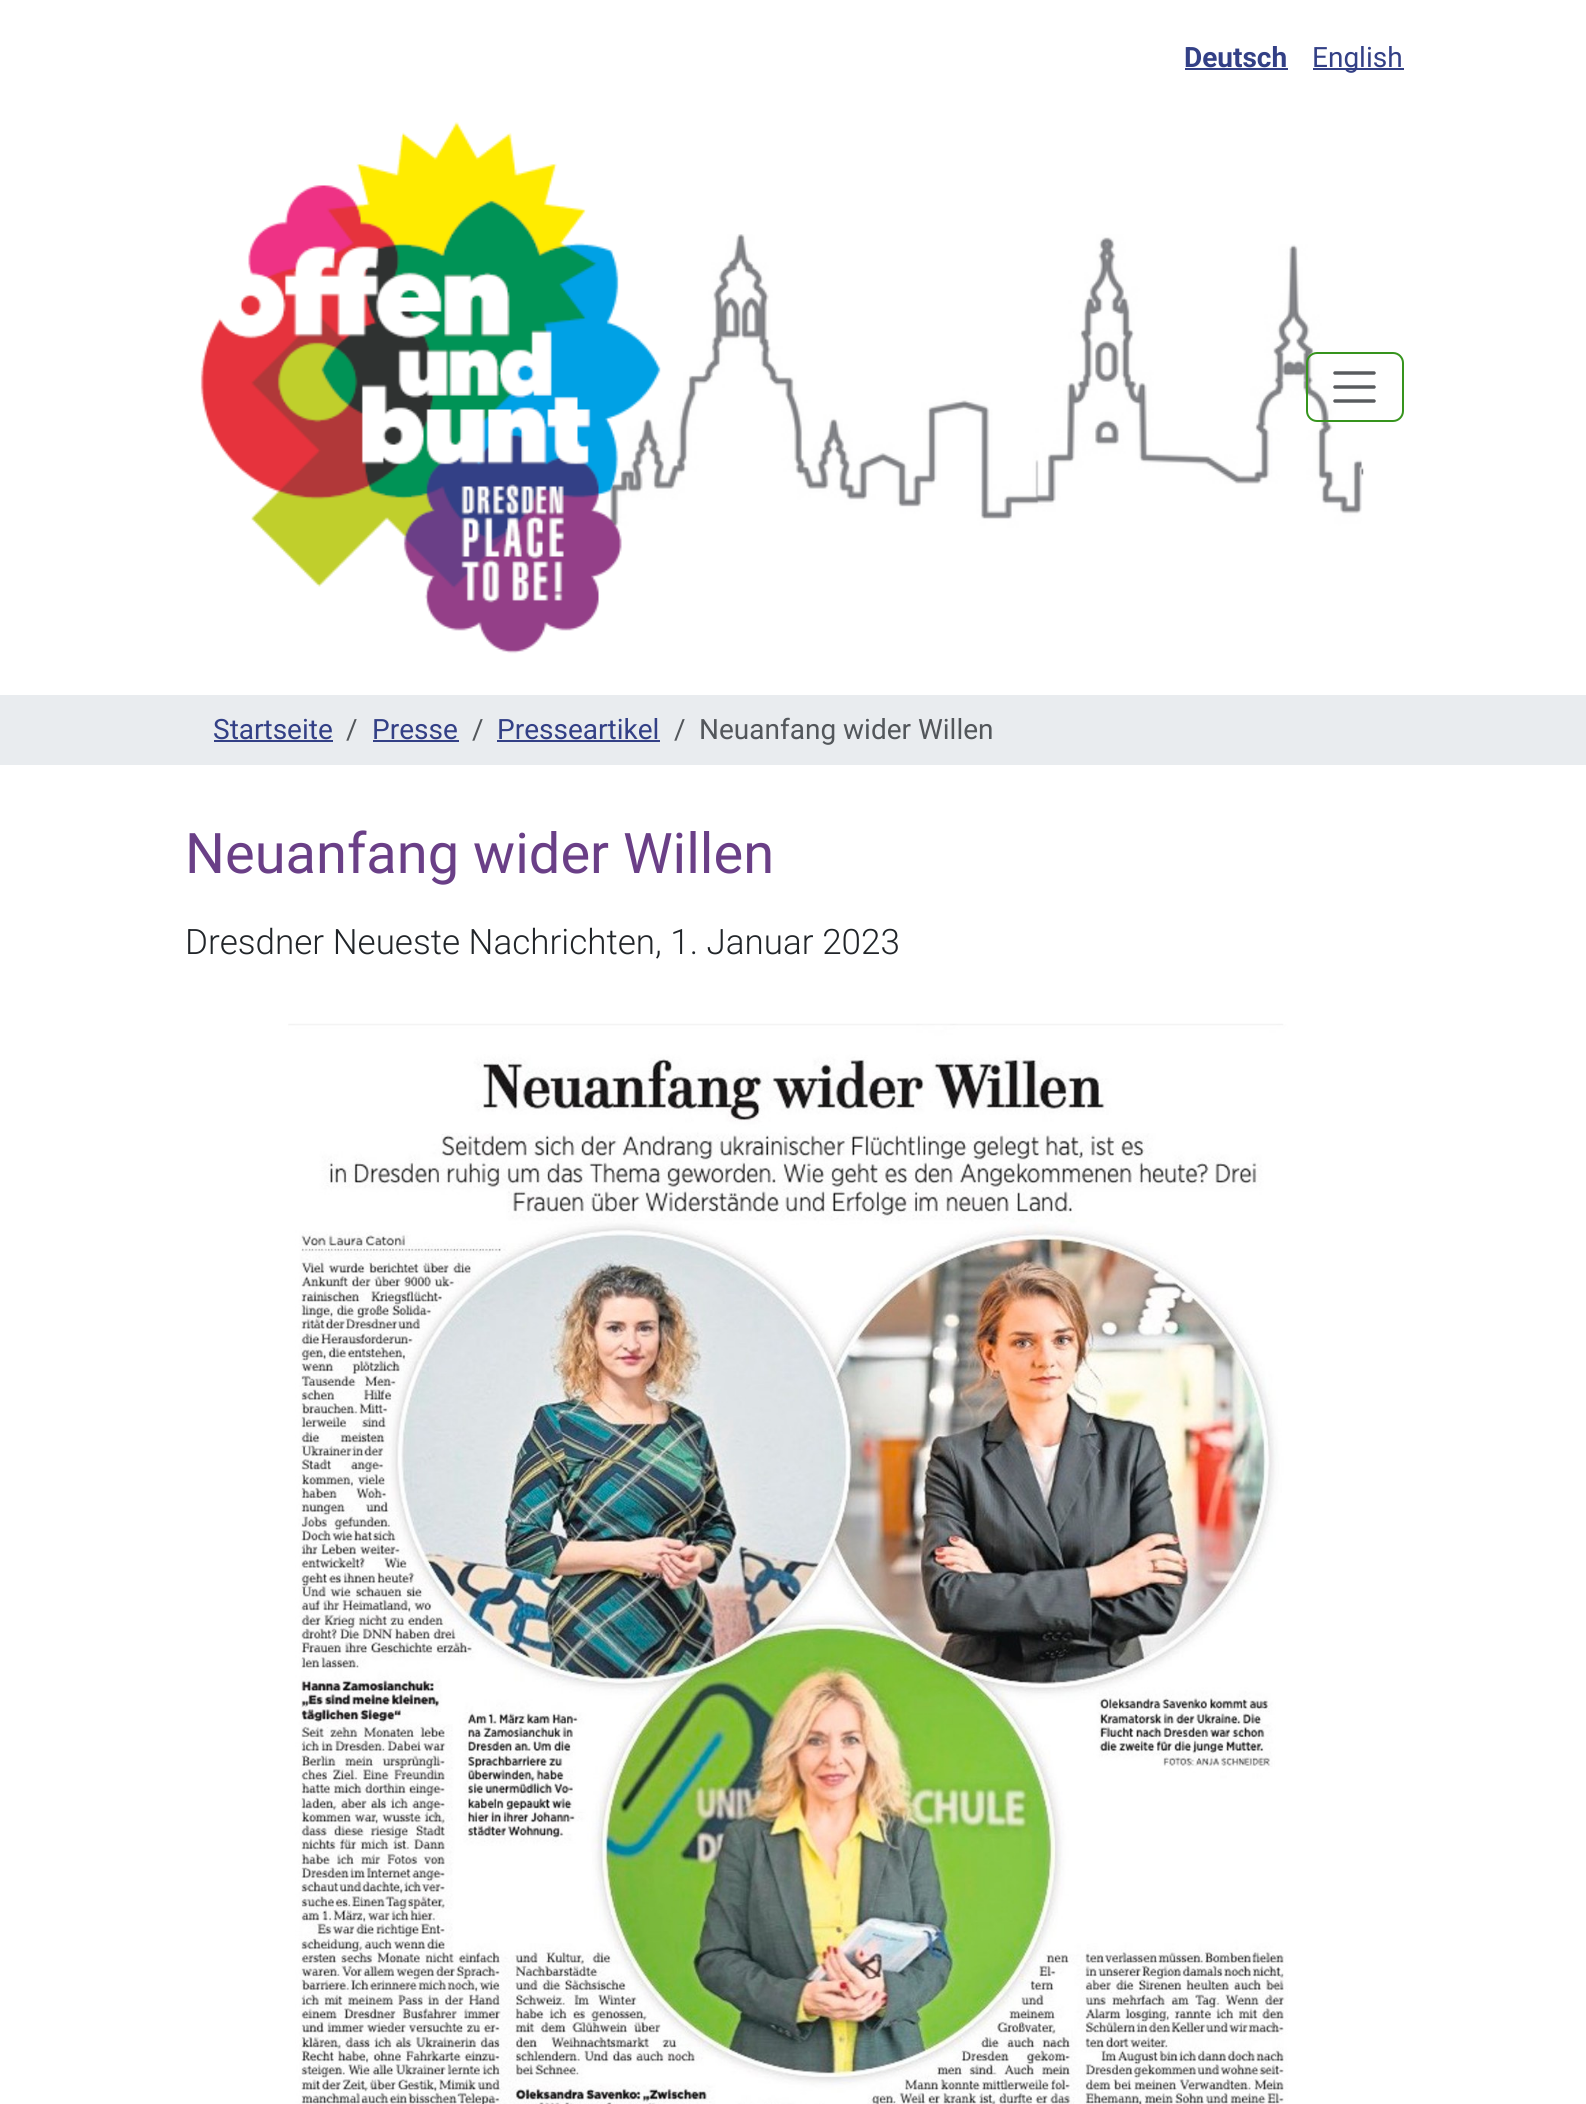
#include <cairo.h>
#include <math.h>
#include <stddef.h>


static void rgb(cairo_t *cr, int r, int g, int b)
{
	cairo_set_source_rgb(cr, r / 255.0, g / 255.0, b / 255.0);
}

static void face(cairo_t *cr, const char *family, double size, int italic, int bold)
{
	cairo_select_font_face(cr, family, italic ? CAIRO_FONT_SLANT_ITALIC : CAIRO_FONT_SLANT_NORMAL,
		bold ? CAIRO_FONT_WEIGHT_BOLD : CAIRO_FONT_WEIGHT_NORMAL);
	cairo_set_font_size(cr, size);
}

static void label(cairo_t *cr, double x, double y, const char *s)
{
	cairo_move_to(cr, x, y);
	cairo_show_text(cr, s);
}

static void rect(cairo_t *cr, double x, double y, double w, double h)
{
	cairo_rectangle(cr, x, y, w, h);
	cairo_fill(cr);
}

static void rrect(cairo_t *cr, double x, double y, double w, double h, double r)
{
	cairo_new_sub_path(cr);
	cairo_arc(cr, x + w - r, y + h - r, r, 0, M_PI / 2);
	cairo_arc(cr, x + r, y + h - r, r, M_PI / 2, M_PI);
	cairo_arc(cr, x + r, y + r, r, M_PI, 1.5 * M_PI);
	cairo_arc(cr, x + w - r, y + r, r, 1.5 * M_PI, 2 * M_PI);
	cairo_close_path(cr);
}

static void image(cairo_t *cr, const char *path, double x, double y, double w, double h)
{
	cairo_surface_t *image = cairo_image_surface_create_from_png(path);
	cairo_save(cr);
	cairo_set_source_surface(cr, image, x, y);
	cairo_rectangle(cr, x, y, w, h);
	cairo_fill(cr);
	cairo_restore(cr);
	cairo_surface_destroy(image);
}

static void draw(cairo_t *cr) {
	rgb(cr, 255, 255, 255);
	cairo_paint(cr);
	image(cr, "image0.png", 224, 234, 1140, 314);
	face(cr, "Roboto", 28, 0, 1);
	rgb(cr, 51, 64, 134);
	label(cr, 1184, 67, "Deutsch");
	rect(cr, 1185, 68, 103, 2);
	rect(cr, 1313, 68, 91, 2);
	face(cr, "Roboto", 28, 0, 0);
	label(cr, 1312, 67, "English");
	image(cr, "image1.png", 200, 122, 461, 532);
	rrect(cr, 1307, 353, 96, 68, 10);
	rgb(cr, 54, 148, 29);
	cairo_stroke(cr);
	cairo_new_path(cr);
	cairo_move_to(cr, 1335, 373);
	cairo_line_to(cr, 1374, 373);
	cairo_move_to(cr, 1335, 387);
	cairo_line_to(cr, 1374, 387);
	cairo_move_to(cr, 1335, 401);
	cairo_line_to(cr, 1374, 401);
	rgb(cr, 88, 91, 94);
	cairo_set_line_width(cr, 3.5);
	cairo_set_line_cap(cr, CAIRO_LINE_CAP_ROUND);
	cairo_stroke(cr);
	rgb(cr, 233, 236, 239);
	rect(cr, 0, 695, 1586, 70);
	rgb(cr, 51, 64, 134);
	label(cr, 213, 739, "Startseite");
	rect(cr, 214, 740, 119, 2);
	rgb(cr, 83, 87, 91);
	label(cr, 346, 739, "/");
	rgb(cr, 51, 64, 134);
	label(cr, 372, 739, "Presse");
	rect(cr, 373, 740, 86, 2);
	rgb(cr, 83, 87, 91);
	label(cr, 472, 739, "/");
	rgb(cr, 51, 64, 134);
	label(cr, 497, 739, "Presseartikel");
	rect(cr, 497, 740, 163, 2);
	rgb(cr, 83, 87, 91);
	label(cr, 674, 739, "/");
	label(cr, 699, 739, "Neuanfang wider Willen");
	face(cr, "Roboto", 56, 0, 0);
	rgb(cr, 106, 63, 135);
	label(cr, 185, 873, "Neuanfang wider Willen");
	face(cr, "Roboto Light", 35, 0, 0);
	rgb(cr, 33, 37, 41);
	label(cr, 185, 954, "Dresdner Neueste Nachrichten, 1. Januar 2023");
	image(cr, "image2.png", 288, 1023, 1000, 1081);
}

int main(void) {
	cairo_surface_t *surface = cairo_image_surface_create(CAIRO_FORMAT_RGB24, 1586, 2104);
	cairo_t *cr = cairo_create(surface);
	cairo_font_options_t *options = cairo_font_options_create();
	cairo_font_options_set_hint_metrics(options, CAIRO_HINT_METRICS_OFF);
	cairo_font_options_set_hint_style(options, CAIRO_HINT_STYLE_NONE);
	cairo_set_font_options(cr, options);
	cairo_set_miter_limit(cr, 4);
	draw(cr);
	cairo_surface_write_to_png(surface, "render.png");
	cairo_font_options_destroy(options);
	cairo_destroy(cr);
	cairo_surface_destroy(surface);
	return 0;
}
